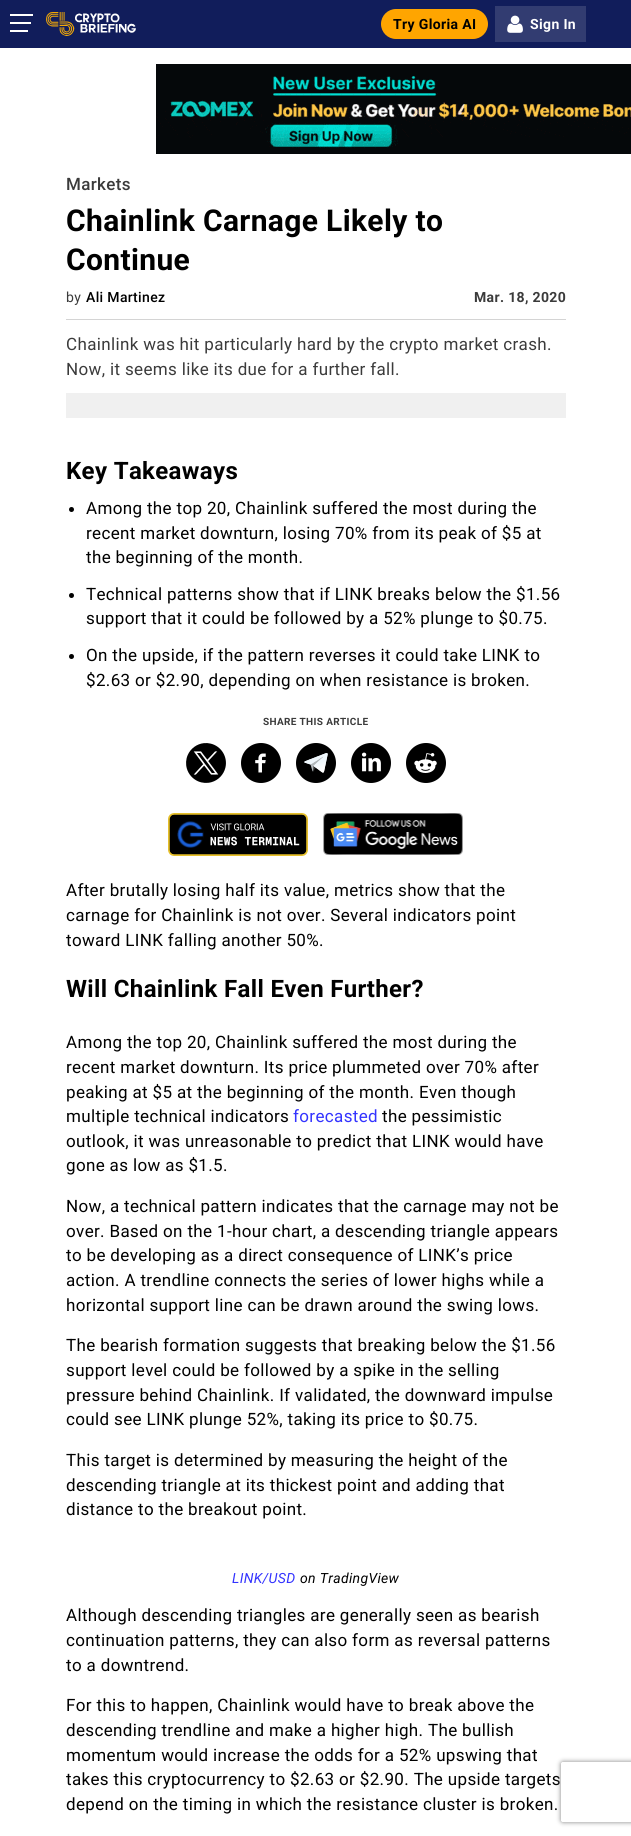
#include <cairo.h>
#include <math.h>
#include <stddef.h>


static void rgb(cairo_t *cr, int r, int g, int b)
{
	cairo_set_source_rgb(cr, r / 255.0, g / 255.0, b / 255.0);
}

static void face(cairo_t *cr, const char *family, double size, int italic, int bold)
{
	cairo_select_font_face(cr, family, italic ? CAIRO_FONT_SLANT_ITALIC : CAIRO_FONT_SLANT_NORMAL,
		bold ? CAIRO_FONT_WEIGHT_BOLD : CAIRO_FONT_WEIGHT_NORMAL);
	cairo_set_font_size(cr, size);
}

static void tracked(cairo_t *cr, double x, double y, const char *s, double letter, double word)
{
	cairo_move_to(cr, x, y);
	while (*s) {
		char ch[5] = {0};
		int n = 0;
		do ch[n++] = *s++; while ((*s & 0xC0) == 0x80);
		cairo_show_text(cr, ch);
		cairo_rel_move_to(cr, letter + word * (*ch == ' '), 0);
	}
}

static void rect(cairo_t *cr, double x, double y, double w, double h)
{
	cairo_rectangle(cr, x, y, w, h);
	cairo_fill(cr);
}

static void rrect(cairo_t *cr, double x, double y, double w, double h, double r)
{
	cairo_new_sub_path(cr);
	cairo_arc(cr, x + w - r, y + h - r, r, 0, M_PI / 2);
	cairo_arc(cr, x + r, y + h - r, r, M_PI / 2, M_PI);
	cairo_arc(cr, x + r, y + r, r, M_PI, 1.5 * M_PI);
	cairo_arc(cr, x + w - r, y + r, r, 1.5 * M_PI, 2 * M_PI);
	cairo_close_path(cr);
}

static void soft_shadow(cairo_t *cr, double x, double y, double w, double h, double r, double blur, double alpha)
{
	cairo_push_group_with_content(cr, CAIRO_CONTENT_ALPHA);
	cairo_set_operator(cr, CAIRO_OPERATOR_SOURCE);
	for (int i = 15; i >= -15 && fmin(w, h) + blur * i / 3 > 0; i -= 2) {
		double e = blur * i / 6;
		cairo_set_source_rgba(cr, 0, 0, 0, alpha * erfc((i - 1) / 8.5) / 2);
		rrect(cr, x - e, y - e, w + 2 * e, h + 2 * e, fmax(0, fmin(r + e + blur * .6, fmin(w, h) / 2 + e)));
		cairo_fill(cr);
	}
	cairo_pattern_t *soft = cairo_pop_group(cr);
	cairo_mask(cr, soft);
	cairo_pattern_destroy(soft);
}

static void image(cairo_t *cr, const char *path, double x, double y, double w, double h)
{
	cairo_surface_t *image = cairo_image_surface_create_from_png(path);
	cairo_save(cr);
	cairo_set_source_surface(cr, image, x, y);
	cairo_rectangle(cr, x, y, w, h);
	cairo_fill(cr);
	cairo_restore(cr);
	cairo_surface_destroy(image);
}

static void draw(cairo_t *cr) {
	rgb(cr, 255, 255, 255);
	cairo_paint(cr);
	rgb(cr, 17, 29, 91);
	rect(cr, 0, 0, 631, 48);
	rgb(cr, 255, 255, 255);
	rect(cr, 10, 14, 23, 2);
	rect(cr, 10, 22, 21, 2);
	rect(cr, 10, 30, 18, 2);
	image(cr, "image0.png", 46, 12, 90, 24);
	rgb(cr, 255, 165, 0);
	rrect(cr, 381, 9, 107, 30, 15);
	cairo_fill(cr);
	face(cr, "Roboto", 14, 0, 1);
	rgb(cr, 0, 0, 0);
	tracked(cr, 393, 29, "Try Gloria AI", 0.35, 0);
	rgb(cr, 50, 60, 113);
	rect(cr, 495, 6, 91, 36);
	image(cr, "image1.png", 507, 15, 16, 18);
	rgb(cr, 255, 255, 255);
	tracked(cr, 530, 29, "Sign In", 0.35, 0);
	image(cr, "image2.png", 156, 64, 475, 90);
	rgb(cr, 212, 212, 212);
	rect(cr, 66, 319, 500, 1);
	face(cr, "Roboto Medium", 17, 0, 0);
	rgb(cr, 59, 59, 59);
	tracked(cr, 66, 190, "Markets", 0.35, 0);
	face(cr, "Roboto", 30, 0, 1);
	rgb(cr, 0, 0, 0);
	tracked(cr, 66, 231, "Chainlink Carnage Likely to", 0.35, 0);
	tracked(cr, 66, 270, "Continue", 0.35, 0);
	face(cr, "Roboto", 14, 0, 0);
	rgb(cr, 59, 59, 59);
	tracked(cr, 66, 302, "by", 0.35, 0);
	face(cr, "Roboto Medium", 14, 0, 0);
	rgb(cr, 0, 0, 0);
	tracked(cr, 86, 302, "Ali Martinez", 0.35, 0);
	face(cr, "Roboto", 14, 0, 1);
	rgb(cr, 59, 59, 59);
	tracked(cr, 474, 302, "Mar. 18, 2020", 0.35, 0);
	face(cr, "Roboto", 17, 0, 0);
	tracked(cr, 66, 350, "Chainlink was hit particularly hard by the crypto market crash.", 0.35, 0);
	tracked(cr, 66, 375, "Now, it seems like its due for a further fall.", 0.35, 0);
	rgb(cr, 240, 240, 240);
	rect(cr, 66, 393, 500, 25);
	face(cr, "Roboto", 24, 0, 1);
	rgb(cr, 0, 0, 0);
	tracked(cr, 66, 479, "Key Takeaways", 0.35, 0);
	cairo_new_path(cr);
	cairo_arc(cr, 71.5, 509.5, 2.5, 0, 2 * M_PI);
	cairo_fill(cr);
	face(cr, "Roboto", 17, 0, 0);
	tracked(cr, 86, 514, "Among the top 20, Chainlink suffered the most during the", 0.35, 0);
	tracked(cr, 86, 539, "recent market downturn, losing 70% from its peak of $5 at", 0.35, 0);
	tracked(cr, 86, 563, "the beginning of the month.", 0.35, 0);
	cairo_new_path(cr);
	cairo_arc(cr, 71.5, 595.5, 2.5, 0, 2 * M_PI);
	cairo_fill(cr);
	tracked(cr, 86, 600, "Technical patterns show that if LINK breaks below the $1.56", 0.35, 0);
	tracked(cr, 86, 624, "support that it could be followed by a 52% plunge to $0.75.", 0.35, 0);
	cairo_new_path(cr);
	cairo_arc(cr, 71.5, 656.5, 2.5, 0, 2 * M_PI);
	cairo_fill(cr);
	tracked(cr, 86, 661, "On the upside, if the pattern reverses it could take LINK to", 0.35, 0);
	tracked(cr, 86, 686, "$2.63 or $2.90, depending on when resistance is broken.", 0.35, 0);
	face(cr, "Roboto", 10, 0, 1);
	rgb(cr, 59, 59, 59);
	tracked(cr, 263, 725, "SHARE THIS ARTICLE", 0.35, 0);
	image(cr, "image3.png", 186, 743, 40, 40);
	image(cr, "image4.png", 241, 743, 40, 40);
	image(cr, "image5.png", 296, 743, 40, 40);
	image(cr, "image6.png", 351, 743, 40, 40);
	image(cr, "image7.png", 406, 743, 40, 40);
	image(cr, "image8.png", 168, 813, 140, 43);
	image(cr, "image9.png", 323, 813, 140, 42);
	face(cr, "Roboto", 17, 0, 0);
	rgb(cr, 0, 0, 0);
	tracked(cr, 66, 896, "After brutally losing half its value, metrics show that the", 0.35, 0);
	tracked(cr, 66, 921, "carnage for Chainlink is not over. Several indicators point", 0.35, 0);
	tracked(cr, 66, 946, "toward LINK falling another 50%.", 0.35, 0);
	face(cr, "Roboto", 24, 0, 1);
	tracked(cr, 66, 997, "Will Chainlink Fall Even Further?", 0.35, 0);
	face(cr, "Roboto", 17, 0, 0);
	tracked(cr, 66, 1048, "Among the top 20, Chainlink suffered the most during the", 0.35, 0);
	tracked(cr, 66, 1073, "recent market downturn. Its price plummeted over 70% after", 0.35, 0);
	tracked(cr, 66, 1098, "peaking at $5 at the beginning of the month. Even though", 0.35, 0);
	tracked(cr, 66, 1122, "multiple technical indicators", 0.35, 0);
	rgb(cr, 51, 51, 255);
	tracked(cr, 293, 1122, "forecasted", 0.35, 0);
	rgb(cr, 0, 0, 0);
	tracked(cr, 382, 1122, "the pessimistic", 0.35, 0);
	tracked(cr, 66, 1147, "outlook, it was unreasonable to predict that LINK would have", 0.35, 0);
	tracked(cr, 66, 1171, "gone as low as $1.5.", 0.35, 0);
	tracked(cr, 66, 1212, "Now, a technical pattern indicates that the carnage may not be", 0.35, 0);
	tracked(cr, 66, 1237, "over. Based on the 1-hour chart, a descending triangle appears", 0.35, 0);
	tracked(cr, 66, 1261, "to be developing as a direct consequence of LINK’s price", 0.35, 0);
	tracked(cr, 66, 1286, "action. A trendline connects the series of lower highs while a", 0.35, 0);
	tracked(cr, 66, 1311, "horizontal support line can be drawn around the swing lows.", 0.35, 0);
	tracked(cr, 66, 1351, "The bearish formation suggests that breaking below the $1.56", 0.35, 0);
	tracked(cr, 66, 1376, "support level could be followed by a spike in the selling", 0.35, 0);
	tracked(cr, 66, 1401, "pressure behind Chainlink. If validated, the downward impulse", 0.35, 0);
	tracked(cr, 66, 1425, "could see LINK plunge 52%, taking its price to $0.75.", 0.35, 0);
	tracked(cr, 66, 1466, "This target is determined by measuring the height of the", 0.35, 0);
	tracked(cr, 66, 1491, "descending triangle at its thickest point and adding that", 0.35, 0);
	tracked(cr, 66, 1515, "distance to the breakout point.", 0.35, 0);
	face(cr, "Roboto", 14, 1, 0);
	rgb(cr, 51, 51, 255);
	tracked(cr, 232, 1583, "LINK/USD", 0.35, 0);
	rgb(cr, 0, 0, 0);
	tracked(cr, 300, 1583, "on TradingView", 0.35, 0);
	face(cr, "Roboto", 17, 0, 0);
	tracked(cr, 66, 1621, "Although descending triangles are generally seen as bearish", 0.35, 0);
	tracked(cr, 66, 1646, "continuation patterns, they can also form as reversal patterns", 0.35, 0);
	tracked(cr, 66, 1671, "to a downtrend.", 0.35, 0);
	tracked(cr, 66, 1711, "For this to happen, Chainlink would have to break above the", 0.35, 0);
	tracked(cr, 66, 1736, "descending trendline and make a higher high. The bullish", 0.35, 0);
	tracked(cr, 66, 1761, "momentum would increase the odds for a 52% upswing that", 0.35, 0);
	tracked(cr, 66, 1785, "takes this cryptocurrency to $2.63 or $2.90. The upside targets", 0.35, 0);
	tracked(cr, 66, 1810, "depend on the timing in which the resistance cluster is broken.", 0.35, 0);
	cairo_save(cr);
	cairo_set_fill_rule(cr, CAIRO_FILL_RULE_EVEN_ODD);
	cairo_new_path(cr);
	cairo_move_to(cr, 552, 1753);
	cairo_line_to(cr, 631, 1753);
	cairo_line_to(cr, 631, 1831);
	cairo_line_to(cr, 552, 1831);
	cairo_close_path(cr);
	cairo_move_to(cr, 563, 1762);
	cairo_line_to(cr, 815, 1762);
	cairo_curve_to(cr, 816, 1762, 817, 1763, 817, 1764);
	cairo_line_to(cr, 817, 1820);
	cairo_curve_to(cr, 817, 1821, 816, 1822, 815, 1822);
	cairo_line_to(cr, 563, 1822);
	cairo_curve_to(cr, 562, 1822, 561, 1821, 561, 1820);
	cairo_line_to(cr, 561, 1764);
	cairo_curve_to(cr, 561, 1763, 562, 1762, 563, 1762);
	cairo_close_path(cr);
	cairo_clip(cr);
	rgb(cr, 128, 128, 128);
	soft_shadow(cr, 561, 1762, 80, 60, 2, 2.5, 1);
	cairo_restore(cr);
}

int main(void) {
	cairo_surface_t *surface = cairo_image_surface_create(CAIRO_FORMAT_RGB24, 631, 1836);
	cairo_t *cr = cairo_create(surface);
	cairo_font_options_t *options = cairo_font_options_create();
	cairo_font_options_set_hint_metrics(options, CAIRO_HINT_METRICS_OFF);
	cairo_font_options_set_hint_style(options, CAIRO_HINT_STYLE_NONE);
	cairo_set_font_options(cr, options);
	cairo_set_miter_limit(cr, 4);
	draw(cr);
	cairo_surface_write_to_png(surface, "render.png");
	cairo_font_options_destroy(options);
	cairo_destroy(cr);
	cairo_surface_destroy(surface);
	return 0;
}
